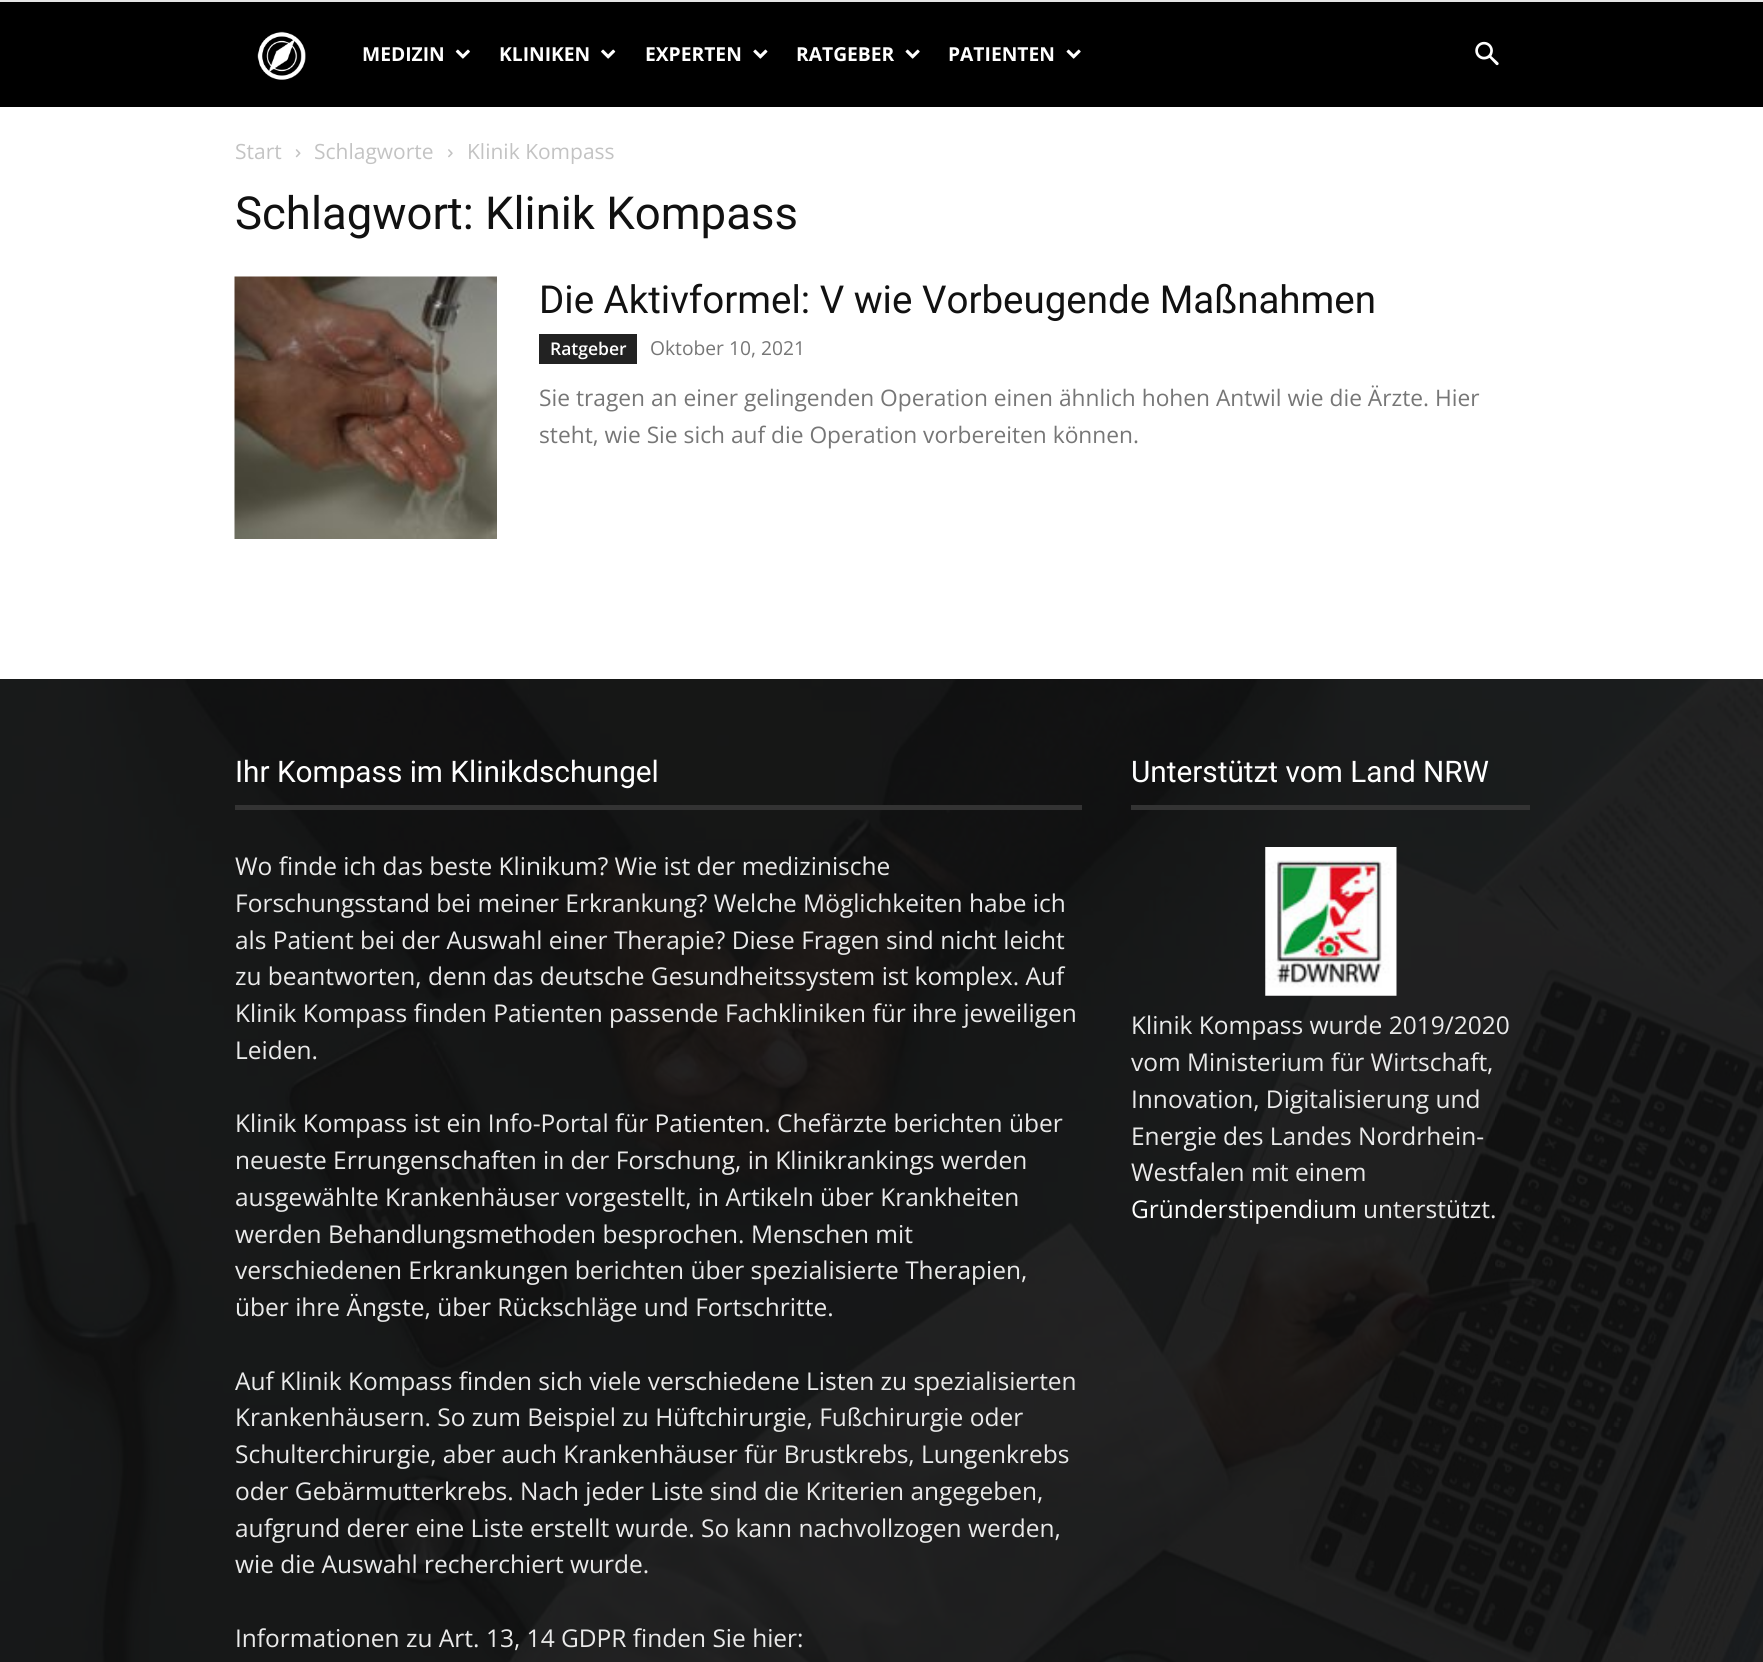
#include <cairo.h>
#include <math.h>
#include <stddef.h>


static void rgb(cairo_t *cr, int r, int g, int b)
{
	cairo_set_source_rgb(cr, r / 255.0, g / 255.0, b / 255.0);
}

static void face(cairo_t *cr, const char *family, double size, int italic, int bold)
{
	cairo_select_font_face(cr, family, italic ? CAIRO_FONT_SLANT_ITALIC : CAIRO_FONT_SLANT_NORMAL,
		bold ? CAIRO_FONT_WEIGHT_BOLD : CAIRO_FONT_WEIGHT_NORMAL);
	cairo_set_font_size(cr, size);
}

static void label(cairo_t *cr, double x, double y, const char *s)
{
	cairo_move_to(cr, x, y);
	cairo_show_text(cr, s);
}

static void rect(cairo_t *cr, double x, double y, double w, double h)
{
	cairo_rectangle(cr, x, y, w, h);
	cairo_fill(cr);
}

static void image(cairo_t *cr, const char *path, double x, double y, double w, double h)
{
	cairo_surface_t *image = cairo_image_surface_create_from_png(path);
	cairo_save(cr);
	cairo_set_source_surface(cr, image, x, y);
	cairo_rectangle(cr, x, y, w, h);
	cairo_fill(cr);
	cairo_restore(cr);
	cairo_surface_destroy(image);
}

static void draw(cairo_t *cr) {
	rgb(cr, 255, 255, 255);
	cairo_paint(cr);
	rgb(cr, 229, 229, 229);
	rect(cr, 0, 0, 1763, 2);
	rgb(cr, 0, 0, 0);
	rect(cr, 0, 2, 1763, 105);
	image(cr, "image0.png", 257, 31, 49, 49);
	face(cr, "Open Sans", 19.25, 0, 1);
	rgb(cr, 255, 255, 255);
	label(cr, 362, 61, "MEDIZIN");
	image(cr, "image1.png", 455, 49, 15, 10);
	label(cr, 499, 61, "KLINIKEN");
	image(cr, "image2.png", 601, 49, 15, 10);
	label(cr, 645, 61, "EXPERTEN");
	image(cr, "image3.png", 753, 49, 15, 10);
	label(cr, 796, 61, "RATGEBER");
	image(cr, "image4.png", 905, 49, 15, 10);
	label(cr, 948, 61, "PATIENTEN");
	image(cr, "image4.png", 1066, 49, 15, 10);
	image(cr, "image5.png", 1475, 41, 24, 25);
	face(cr, "Open Sans", 21, 0, 0);
	rgb(cr, 195, 195, 195);
	label(cr, 235, 159, "Start");
	image(cr, "image6.png", 295, 149, 6, 9);
	label(cr, 314, 159, "Schlagworte");
	image(cr, "image7.png", 448, 149, 5, 9);
	label(cr, 467, 159, "Klinik Kompass");
	face(cr, "Roboto", 45.5, 0, 0);
	rgb(cr, 17, 17, 17);
	label(cr, 235, 229, "Schlagwort: Klinik Kompass");
	image(cr, "image8.png", 234, 276, 263, 263);
	face(cr, "Roboto", 38.5, 0, 0);
	label(cr, 539, 313, "Die Aktivformel: V wie Vorbeugende Maßnahmen");
	rgb(cr, 34, 34, 34);
	rect(cr, 539, 334, 98, 30);
	face(cr, "Open Sans SemiBold", 17.5, 0, 0);
	rgb(cr, 255, 255, 255);
	label(cr, 550, 355, "Ratgeber");
	face(cr, "Open Sans", 19.25, 0, 0);
	rgb(cr, 118, 118, 118);
	label(cr, 650, 355, "Oktober 10, 2021");
	face(cr, "Open Sans", 22.75, 0, 0);
	label(cr, 539, 406, "Sie tragen an einer gelingenden Operation einen ähnlich hohen Antwil wie die Ärzte. Hier");
	label(cr, 539, 443, "steht, wie Sie sich auf die Operation vorbereiten können.");
	rgb(cr, 17, 17, 17);
	rect(cr, 0, 679, 1763, 983);
	image(cr, "image9.png", 0, 679, 1763, 983);
	face(cr, "Roboto", 29.75, 0, 0);
	rgb(cr, 255, 255, 255);
	label(cr, 235, 782, "Ihr Kompass im Klinikdschungel");
	rgb(cr, 51, 51, 51);
	rect(cr, 235, 805, 847, 5);
	face(cr, "Open Sans", 24.5, 0, 0);
	rgb(cr, 234, 234, 234);
	label(cr, 235, 875, "Wo finde ich das beste Klinikum? Wie ist der medizinische");
	label(cr, 235, 912, "Forschungsstand bei meiner Erkrankung? Welche Möglichkeiten habe ich");
	label(cr, 235, 949, "als Patient bei der Auswahl einer Therapie? Diese Fragen sind nicht leicht");
	label(cr, 235, 985, "zu beantworten, denn das deutsche Gesundheitssystem ist komplex. Auf");
	label(cr, 235, 1022, "Klinik Kompass finden Patienten passende Fachkliniken für ihre jeweiligen");
	label(cr, 235, 1059, "Leiden.");
	label(cr, 235, 1132, "Klinik Kompass ist ein Info-Portal für Patienten. Chefärzte berichten über");
	label(cr, 235, 1169, "neueste Errungenschaften in der Forschung, in Klinikrankings werden");
	label(cr, 235, 1206, "ausgewählte Krankenhäuser vorgestellt, in Artikeln über Krankheiten");
	label(cr, 235, 1243, "werden Behandlungsmethoden besprochen. Menschen mit");
	label(cr, 235, 1279, "verschiedenen Erkrankungen berichten über spezialisierte Therapien,");
	label(cr, 235, 1316, "über ihre Ängste, über Rückschläge und Fortschritte.");
	label(cr, 235, 1390, "Auf Klinik Kompass finden sich viele verschiedene Listen zu spezialisierten");
	label(cr, 235, 1426, "Krankenhäusern. So zum Beispiel zu Hüftchirurgie, Fußchirurgie oder");
	label(cr, 235, 1463, "Schulterchirurgie, aber auch Krankenhäuser für Brustkrebs, Lungenkrebs");
	label(cr, 235, 1500, "oder Gebärmutterkrebs. Nach jeder Liste sind die Kriterien angegeben,");
	label(cr, 235, 1537, "aufgrund derer eine Liste erstellt wurde. So kann nachvollzogen werden,");
	label(cr, 235, 1573, "wie die Auswahl recherchiert wurde.");
	label(cr, 235, 1647, "Informationen zu Art. 13, 14 GDPR finden Sie hier:");
	face(cr, "Roboto", 29.75, 0, 0);
	rgb(cr, 255, 255, 255);
	label(cr, 1131, 782, "Unterstützt vom Land NRW");
	rgb(cr, 51, 51, 51);
	rect(cr, 1131, 805, 399, 5);
	image(cr, "image10.png", 1265, 847, 132, 149);
	face(cr, "Open Sans", 24.5, 0, 0);
	rgb(cr, 234, 234, 234);
	label(cr, 1131, 1034, "Klinik Kompass wurde 2019/2020");
	label(cr, 1131, 1071, "vom Ministerium für Wirtschaft,");
	label(cr, 1131, 1108, "Innovation, Digitalisierung und");
	label(cr, 1131, 1145, "Energie des Landes Nordrhein-");
	label(cr, 1131, 1181, "Westfalen mit einem");
	rgb(cr, 255, 255, 255);
	label(cr, 1131, 1218, "Gründerstipendium");
	rgb(cr, 234, 234, 234);
	label(cr, 1363, 1218, "unterstützt.");
}

int main(void) {
	cairo_surface_t *surface = cairo_image_surface_create(CAIRO_FORMAT_RGB24, 1763, 1662);
	cairo_t *cr = cairo_create(surface);
	cairo_font_options_t *options = cairo_font_options_create();
	cairo_font_options_set_hint_metrics(options, CAIRO_HINT_METRICS_OFF);
	cairo_font_options_set_hint_style(options, CAIRO_HINT_STYLE_NONE);
	cairo_set_font_options(cr, options);
	cairo_set_miter_limit(cr, 4);
	draw(cr);
	cairo_surface_write_to_png(surface, "render.png");
	cairo_font_options_destroy(options);
	cairo_destroy(cr);
	cairo_surface_destroy(surface);
	return 0;
}
